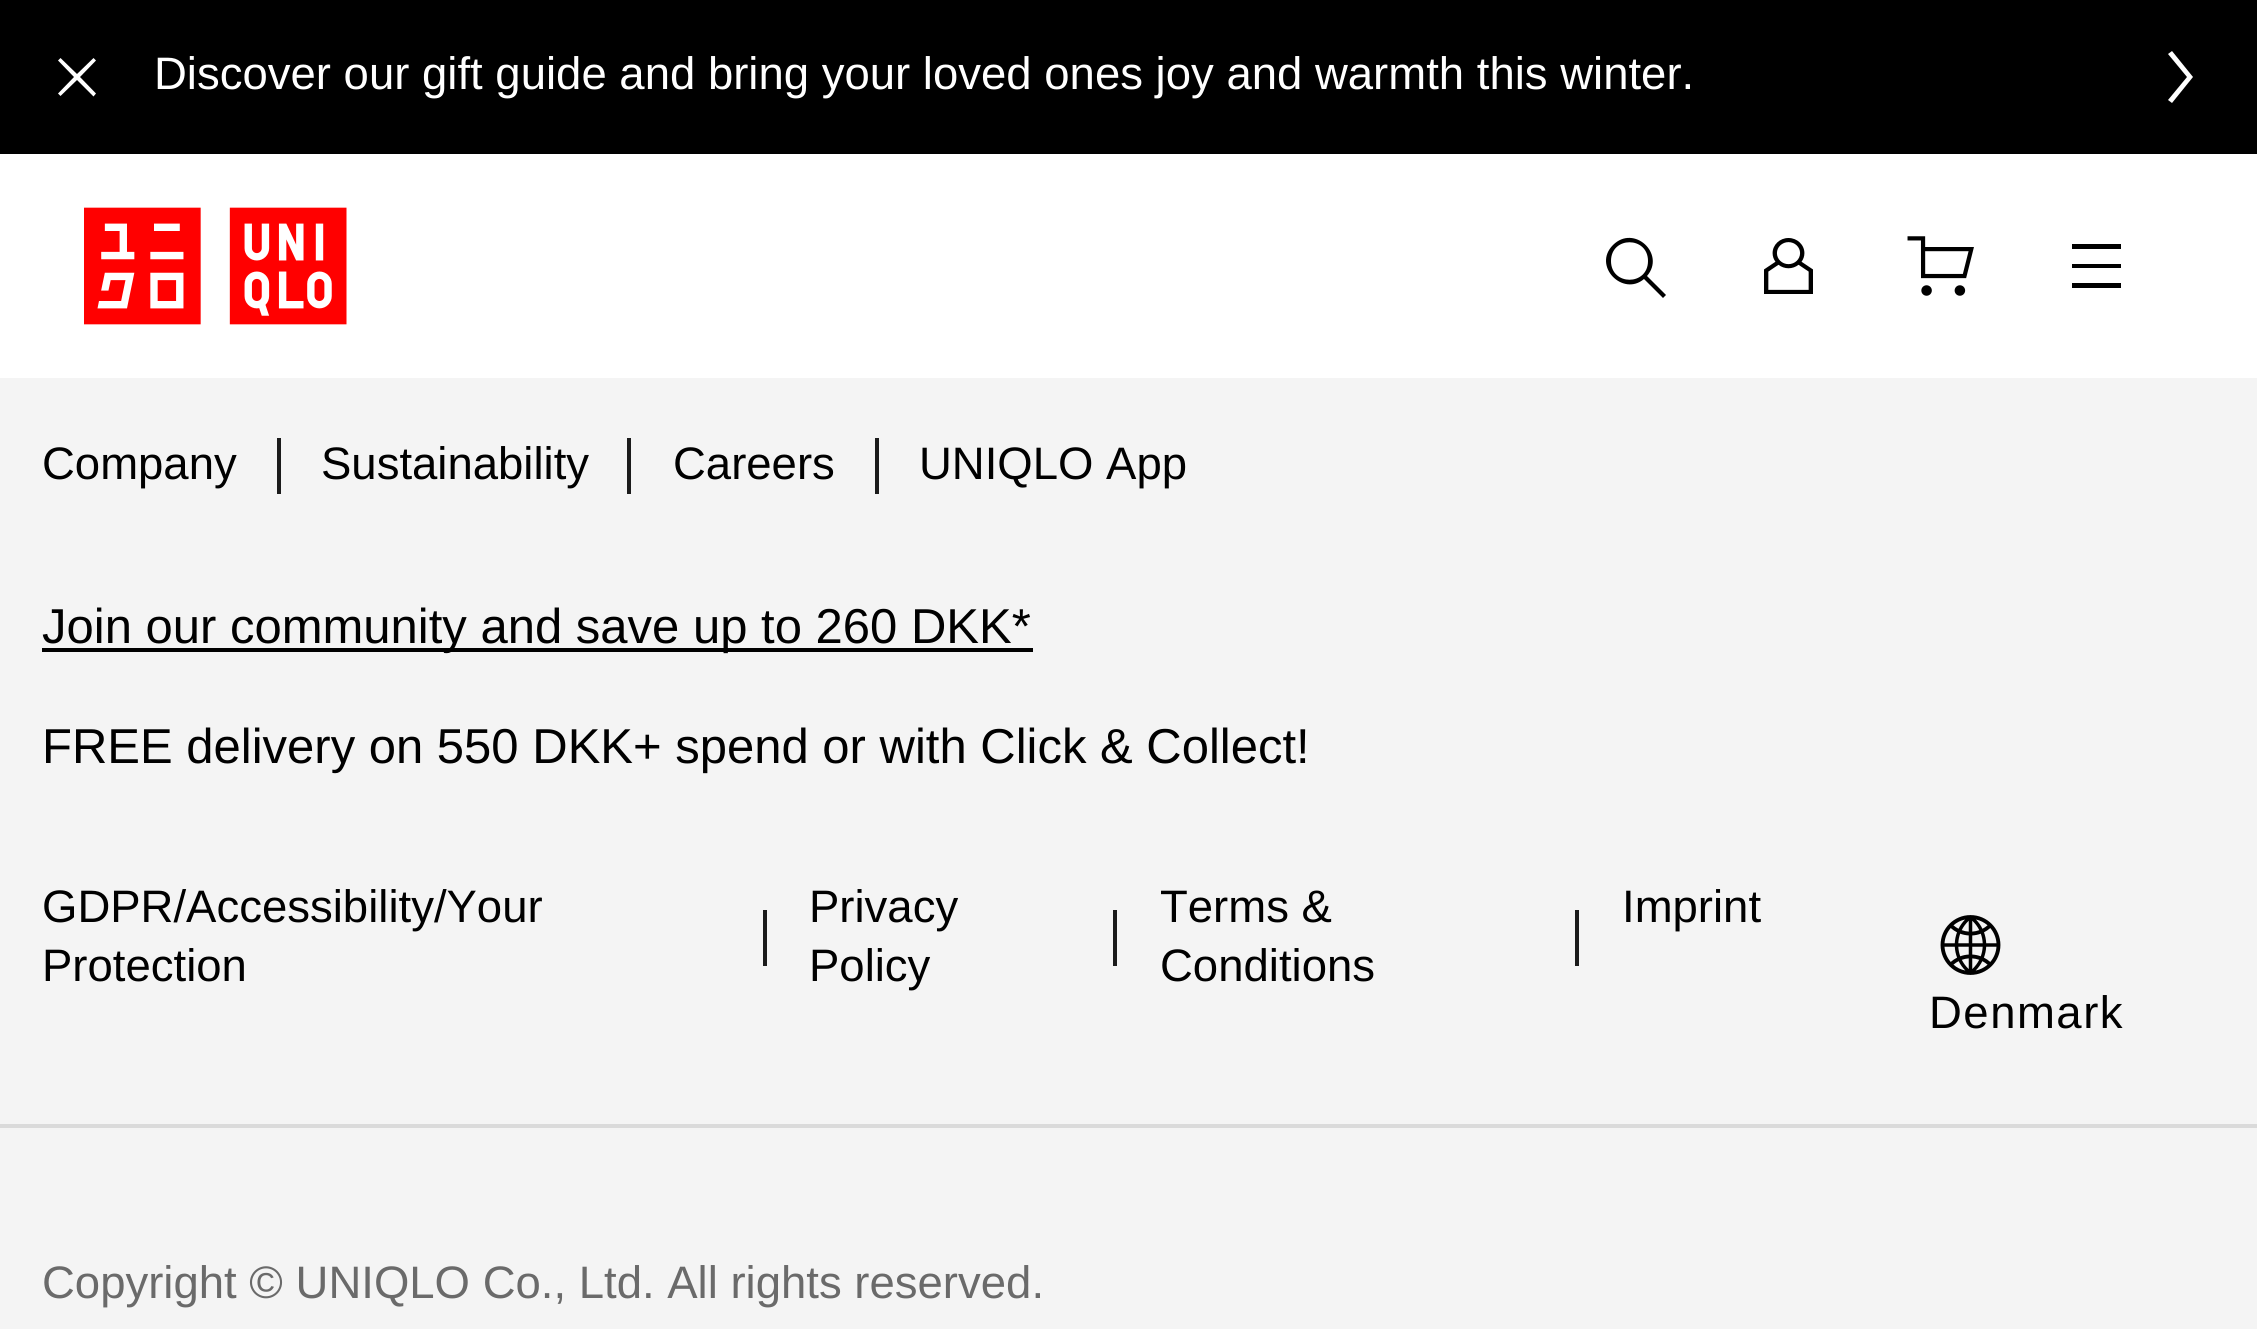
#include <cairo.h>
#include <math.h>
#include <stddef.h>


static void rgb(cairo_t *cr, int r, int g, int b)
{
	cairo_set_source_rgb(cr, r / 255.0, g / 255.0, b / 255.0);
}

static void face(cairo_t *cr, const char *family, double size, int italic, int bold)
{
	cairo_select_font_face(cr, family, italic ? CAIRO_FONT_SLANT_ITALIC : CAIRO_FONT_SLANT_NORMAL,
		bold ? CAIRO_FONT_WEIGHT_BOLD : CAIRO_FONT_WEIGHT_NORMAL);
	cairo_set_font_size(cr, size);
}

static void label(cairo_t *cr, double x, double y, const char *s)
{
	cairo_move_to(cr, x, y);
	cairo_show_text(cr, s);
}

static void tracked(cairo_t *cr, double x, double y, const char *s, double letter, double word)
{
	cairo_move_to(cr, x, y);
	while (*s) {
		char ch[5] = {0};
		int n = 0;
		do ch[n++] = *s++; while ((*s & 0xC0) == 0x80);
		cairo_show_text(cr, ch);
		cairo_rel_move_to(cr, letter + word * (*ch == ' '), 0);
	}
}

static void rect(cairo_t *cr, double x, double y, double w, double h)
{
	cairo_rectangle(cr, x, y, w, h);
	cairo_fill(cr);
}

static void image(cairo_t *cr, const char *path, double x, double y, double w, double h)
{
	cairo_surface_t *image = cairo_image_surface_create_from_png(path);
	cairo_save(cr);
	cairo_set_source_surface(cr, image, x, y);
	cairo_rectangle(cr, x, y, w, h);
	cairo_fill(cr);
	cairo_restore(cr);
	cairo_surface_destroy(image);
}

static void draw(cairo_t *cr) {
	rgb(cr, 244, 244, 244);
	cairo_paint(cr);
	rgb(cr, 0, 0, 0);
	rect(cr, 0, 0, 2257, 154);
	rgb(cr, 255, 255, 255);
	cairo_new_path(cr);
	cairo_move_to(cr, 96, 60.5);
	cairo_line_to(cr, 93.5, 58);
	cairo_line_to(cr, 77, 74);
	cairo_line_to(cr, 60.5, 58);
	cairo_line_to(cr, 58, 60.5);
	cairo_line_to(cr, 74, 77);
	cairo_line_to(cr, 58, 93.5);
	cairo_line_to(cr, 60.5, 96);
	cairo_line_to(cr, 77, 80);
	cairo_line_to(cr, 93.5, 96.5);
	cairo_line_to(cr, 96, 93.5);
	cairo_line_to(cr, 80, 77);
	cairo_close_path(cr);
	cairo_fill(cr);
	face(cr, "Liberation Sans", 45.5, 0, 0);
	label(cr, 154, 89, "Discover our gift guide and bring your loved ones joy and warmth this winter.");
	cairo_new_path(cr);
	cairo_move_to(cr, 2172, 103);
	cairo_line_to(cr, 2193, 77);
	cairo_line_to(cr, 2172, 51);
	cairo_line_to(cr, 2168, 54);
	cairo_line_to(cr, 2187, 77);
	cairo_line_to(cr, 2168, 100);
	cairo_close_path(cr);
	cairo_fill(cr);
	rect(cr, 0, 154, 2257, 224);
	image(cr, "image0.png", 84, 207, 263, 118);
	rgb(cr, 0, 0, 0);
	cairo_new_path(cr);
	cairo_move_to(cr, 1666, 295);
	cairo_line_to(cr, 1647, 276);
	cairo_curve_to(cr, 1666, 254, 1634, 224, 1613, 245);
	cairo_curve_to(cr, 1592, 266, 1623, 297, 1644, 279);
	cairo_line_to(cr, 1663, 298);
	cairo_close_path(cr);
	cairo_move_to(cr, 1611, 261);
	cairo_curve_to(cr, 1611, 236, 1648, 236, 1648, 261);
	cairo_curve_to(cr, 1648, 286, 1611, 286, 1611, 261);
	cairo_fill(cr);
	image(cr, "image1.png", 1764, 238, 49, 56);
	image(cr, "image2.png", 1907, 236, 67, 60);
	cairo_new_path(cr);
	cairo_move_to(cr, 2072, 244);
	cairo_line_to(cr, 2072, 249);
	cairo_line_to(cr, 2121, 249);
	cairo_line_to(cr, 2121, 244);
	cairo_close_path(cr);
	cairo_move_to(cr, 2072, 264);
	cairo_line_to(cr, 2072, 268);
	cairo_line_to(cr, 2121, 268);
	cairo_line_to(cr, 2121, 264);
	cairo_close_path(cr);
	cairo_move_to(cr, 2072, 283);
	cairo_line_to(cr, 2072, 288);
	cairo_line_to(cr, 2121, 288);
	cairo_line_to(cr, 2121, 283);
	cairo_close_path(cr);
	cairo_fill(cr);
	label(cr, 42, 479, "Company");
	rgb(cr, 27, 27, 27);
	rect(cr, 277, 438, 4, 56);
	rgb(cr, 0, 0, 0);
	label(cr, 321, 479, "Sustainability");
	rgb(cr, 27, 27, 27);
	rect(cr, 627, 438, 4, 56);
	rgb(cr, 0, 0, 0);
	label(cr, 673, 479, "Careers");
	rgb(cr, 27, 27, 27);
	rect(cr, 875, 438, 4, 56);
	rgb(cr, 0, 0, 0);
	label(cr, 919, 479, "UNIQLO App");
	rect(cr, 42, 648, 991, 4);
	face(cr, "Liberation Sans", 49, 0, 0);
	label(cr, 42, 643, "Join our community and save up to 260 DKK*");
	label(cr, 42, 763, "FREE delivery on 550 DKK+ spend or with Click & Collect!");
	face(cr, "Liberation Sans", 45.5, 0, 0);
	label(cr, 42, 922, "GDPR/Accessibility/Your");
	label(cr, 42, 981, "Protection");
	rgb(cr, 27, 27, 27);
	rect(cr, 763, 910, 4, 56);
	rgb(cr, 0, 0, 0);
	label(cr, 809, 922, "Privacy");
	label(cr, 809, 981, "Policy");
	rgb(cr, 27, 27, 27);
	rect(cr, 1113, 910, 4, 56);
	rgb(cr, 0, 0, 0);
	label(cr, 1160, 922, "Terms &");
	label(cr, 1160, 981, "Conditions");
	rgb(cr, 27, 27, 27);
	rect(cr, 1575, 910, 4, 56);
	rgb(cr, 0, 0, 0);
	label(cr, 1622, 922, "Imprint");
	image(cr, "image3.png", 1940, 915, 61, 60);
	tracked(cr, 1929, 1028, "Denmark", 1.5, 0);
	rgb(cr, 218, 218, 218);
	rect(cr, 0, 1124, 2257, 4);
	rgb(cr, 106, 106, 106);
	label(cr, 42, 1298, "Copyright © UNIQLO Co., Ltd. All rights reserved.");
}

int main(void) {
	cairo_surface_t *surface = cairo_image_surface_create(CAIRO_FORMAT_RGB24, 2257, 1329);
	cairo_t *cr = cairo_create(surface);
	cairo_font_options_t *options = cairo_font_options_create();
	cairo_font_options_set_hint_metrics(options, CAIRO_HINT_METRICS_OFF);
	cairo_font_options_set_hint_style(options, CAIRO_HINT_STYLE_NONE);
	cairo_set_font_options(cr, options);
	cairo_set_miter_limit(cr, 4);
	draw(cr);
	cairo_surface_write_to_png(surface, "render.png");
	cairo_font_options_destroy(options);
	cairo_destroy(cr);
	cairo_surface_destroy(surface);
	return 0;
}
